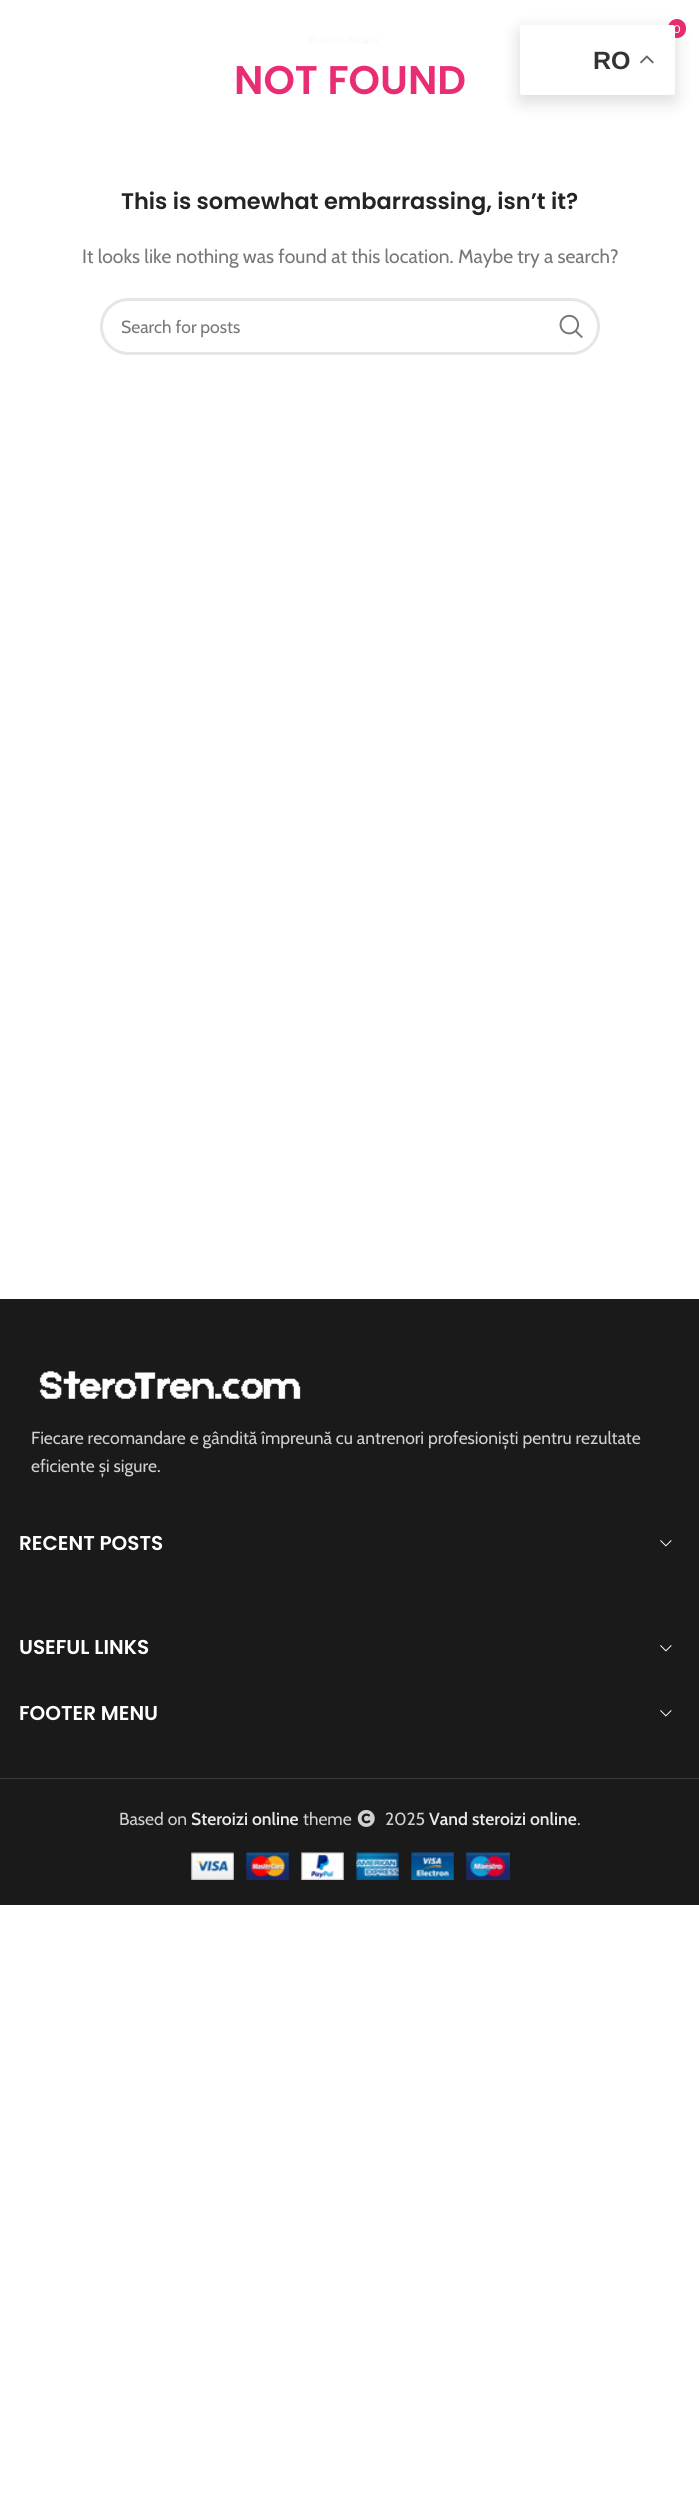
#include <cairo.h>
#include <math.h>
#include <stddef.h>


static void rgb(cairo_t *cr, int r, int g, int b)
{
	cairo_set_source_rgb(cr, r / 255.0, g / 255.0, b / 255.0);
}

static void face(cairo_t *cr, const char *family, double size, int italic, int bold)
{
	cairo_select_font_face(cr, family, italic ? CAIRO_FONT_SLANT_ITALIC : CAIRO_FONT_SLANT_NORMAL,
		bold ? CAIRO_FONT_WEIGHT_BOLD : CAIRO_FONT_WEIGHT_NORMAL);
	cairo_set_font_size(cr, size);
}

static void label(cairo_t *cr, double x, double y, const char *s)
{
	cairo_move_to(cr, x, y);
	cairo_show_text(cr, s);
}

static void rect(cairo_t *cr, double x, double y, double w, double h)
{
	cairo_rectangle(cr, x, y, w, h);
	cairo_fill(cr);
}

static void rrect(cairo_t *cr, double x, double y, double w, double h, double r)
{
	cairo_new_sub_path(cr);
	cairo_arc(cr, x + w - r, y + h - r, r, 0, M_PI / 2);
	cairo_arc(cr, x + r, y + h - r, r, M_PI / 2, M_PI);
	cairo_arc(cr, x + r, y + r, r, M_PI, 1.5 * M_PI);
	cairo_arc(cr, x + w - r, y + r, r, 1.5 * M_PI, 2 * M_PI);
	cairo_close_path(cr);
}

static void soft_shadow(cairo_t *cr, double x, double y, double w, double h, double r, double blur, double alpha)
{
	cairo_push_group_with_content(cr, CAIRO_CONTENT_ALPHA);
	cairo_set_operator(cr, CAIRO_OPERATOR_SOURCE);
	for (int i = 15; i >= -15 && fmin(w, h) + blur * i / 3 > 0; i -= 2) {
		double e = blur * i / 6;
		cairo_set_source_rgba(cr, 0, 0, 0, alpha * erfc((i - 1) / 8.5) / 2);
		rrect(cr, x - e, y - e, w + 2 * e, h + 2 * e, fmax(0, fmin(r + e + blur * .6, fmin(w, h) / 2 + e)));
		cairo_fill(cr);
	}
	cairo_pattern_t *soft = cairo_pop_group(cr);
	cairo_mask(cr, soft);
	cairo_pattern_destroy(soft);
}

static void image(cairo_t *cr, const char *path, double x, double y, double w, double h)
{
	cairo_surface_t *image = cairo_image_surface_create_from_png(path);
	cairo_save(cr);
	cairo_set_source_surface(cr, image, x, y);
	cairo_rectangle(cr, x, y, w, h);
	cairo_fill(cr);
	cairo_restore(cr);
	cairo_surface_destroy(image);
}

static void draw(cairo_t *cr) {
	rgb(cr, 255, 255, 255);
	cairo_paint(cr);
	rgb(cr, 233, 45, 116);
	rrect(cr, 668, 19, 18, 19, 9);
	cairo_fill(cr);
	face(cr, "Cabin", 11, 0, 0);
	rgb(cr, 255, 255, 255);
	label(cr, 673, 33, "0");
	image(cr, "image0.png", 308, 36, 72, 8);
	face(cr, "Poppins SemiBold", 40, 0, 0);
	rgb(cr, 233, 45, 116);
	label(cr, 234, 94, "NOT FOUND");
	face(cr, "Poppins SemiBold", 22.5, 0, 0);
	rgb(cr, 36, 36, 36);
	label(cr, 121, 209, "This is somewhat embarrassing, isn’t it?");
	face(cr, "Cabin", 19.25, 0, 0);
	rgb(cr, 119, 119, 119);
	label(cr, 82, 263, "It looks like nothing was found at this location. Maybe try a search?");
	rrect(cr, 101.5, 299.5, 497, 54, 27);
	rgb(cr, 230, 230, 230);
	cairo_set_line_width(cr, 3);
	cairo_stroke(cr);
	face(cr, "Cabin", 17.5, 0, 0);
	rgb(cr, 119, 119, 119);
	label(cr, 121, 333, "Search for posts");
	image(cr, "image1.png", 559, 314, 24, 25);
	rgb(cr, 26, 26, 26);
	rect(cr, 0, 1299, 699, 606);
	image(cr, "image2.png", 39, 1371, 262, 28);
	rgb(cr, 209, 209, 209);
	label(cr, 31, 1444, "Fiecare recomandare e gândită împreună cu antrenori profesioniști pentru rezultate");
	label(cr, 31, 1472, "eficiente și sigure.");
	face(cr, "Poppins SemiBold", 20, 0, 0);
	rgb(cr, 255, 255, 255);
	label(cr, 19, 1550, "RECENT POSTS");
	image(cr, "image3.png", 660, 1540, 12, 7);
	label(cr, 19, 1654, "USEFUL LINKS");
	image(cr, "image3.png", 660, 1645, 12, 7);
	label(cr, 19, 1720, "FOOTER MENU");
	image(cr, "image3.png", 660, 1710, 12, 7);
	rgb(cr, 60, 60, 60);
	rect(cr, 0, 1778, 699, 1);
	face(cr, "Cabin", 17.5, 0, 0);
	rgb(cr, 209, 209, 209);
	label(cr, 119, 1825, "Based on");
	face(cr, "Cabin SemiBold", 17.5, 0, 0);
	rgb(cr, 232, 232, 232);
	label(cr, 191, 1825, "Steroizi online");
	face(cr, "Cabin", 17.5, 0, 0);
	rgb(cr, 209, 209, 209);
	label(cr, 303, 1825, "theme");
	image(cr, "image4.png", 357, 1810, 18, 17);
	label(cr, 385, 1825, "2025");
	face(cr, "Cabin SemiBold", 17.5, 0, 0);
	rgb(cr, 232, 232, 232);
	label(cr, 429, 1825, "Vand steroizi online");
	face(cr, "Cabin", 17.5, 0, 0);
	rgb(cr, 209, 209, 209);
	label(cr, 577, 1825, ".");
	image(cr, "image5.png", 191, 1852, 319, 28);
	rgb(cr, 0, 0, 0);
	soft_shadow(cr, 520, 31, 155, 70, 2.5, 9.5, 0.15);
	rgb(cr, 255, 255, 255);
	rrect(cr, 520, 25, 155, 70, 2.5);
	cairo_fill(cr);
	face(cr, "Liberation Sans", 25, 0, 1);
	rgb(cr, 51, 51, 51);
	label(cr, 593, 69, "RO");
	image(cr, "image6.png", 640, 55, 14, 9);
}

int main(void) {
	cairo_surface_t *surface = cairo_image_surface_create(CAIRO_FORMAT_RGB24, 699, 2497);
	cairo_t *cr = cairo_create(surface);
	cairo_font_options_t *options = cairo_font_options_create();
	cairo_font_options_set_hint_metrics(options, CAIRO_HINT_METRICS_OFF);
	cairo_font_options_set_hint_style(options, CAIRO_HINT_STYLE_NONE);
	cairo_set_font_options(cr, options);
	cairo_set_miter_limit(cr, 4);
	draw(cr);
	cairo_surface_write_to_png(surface, "render.png");
	cairo_font_options_destroy(options);
	cairo_destroy(cr);
	cairo_surface_destroy(surface);
	return 0;
}
